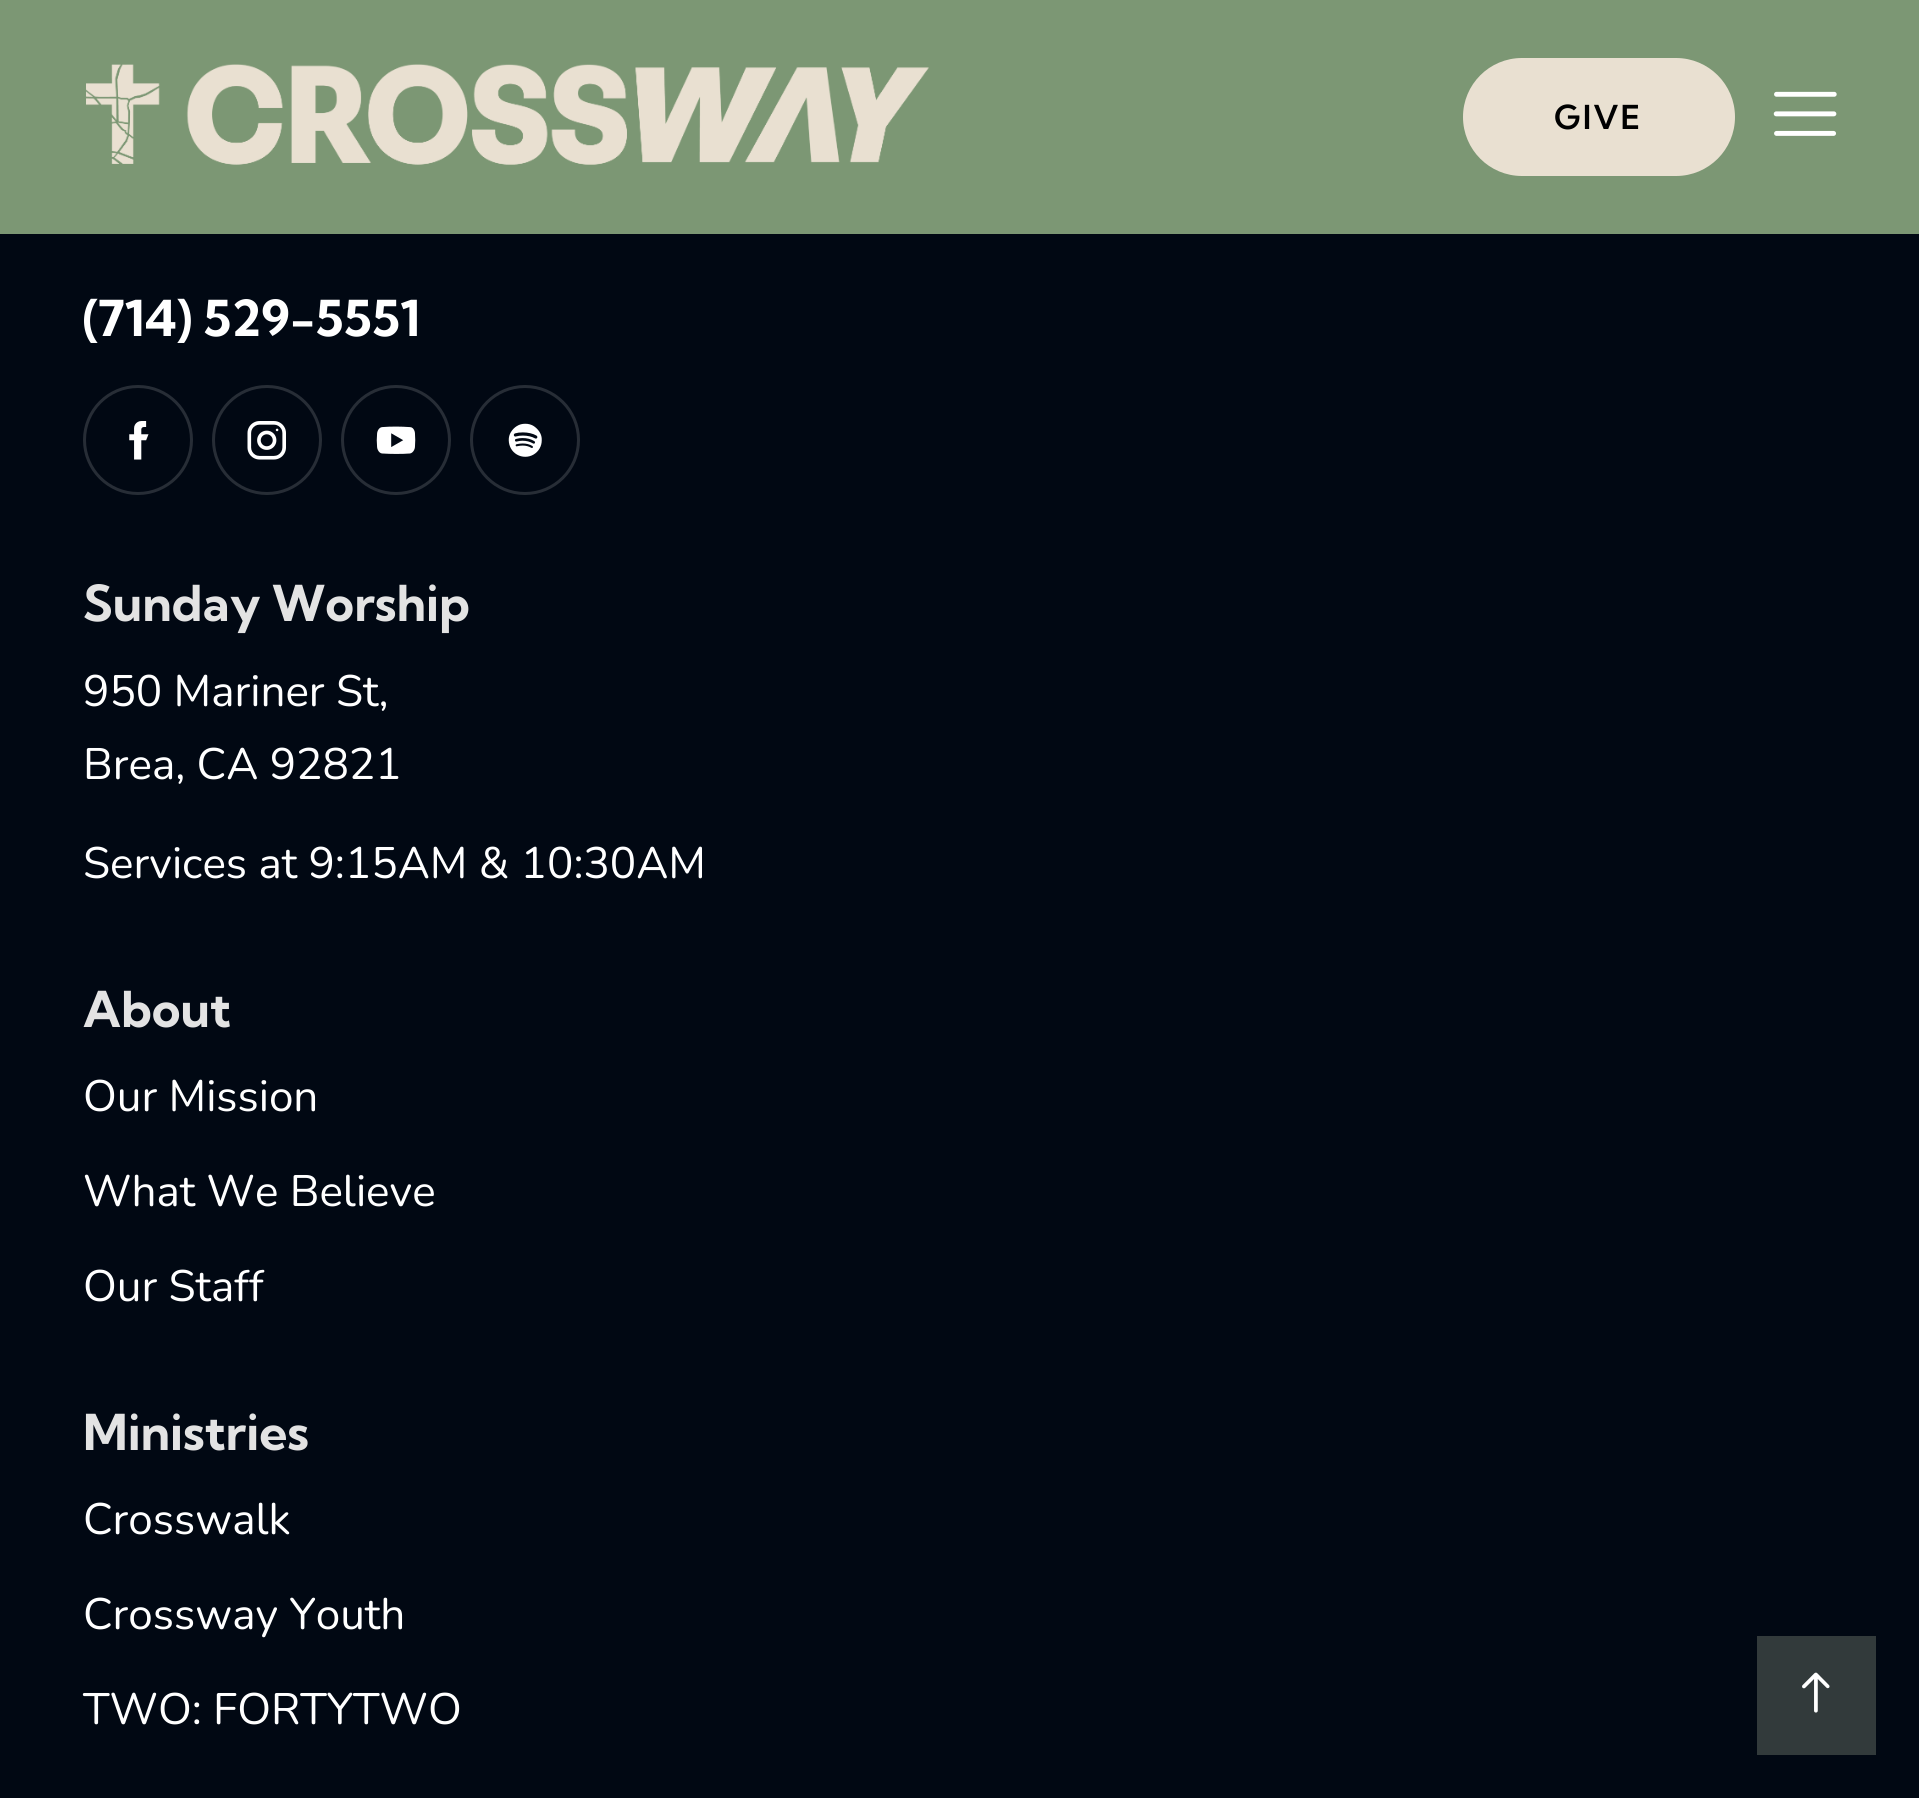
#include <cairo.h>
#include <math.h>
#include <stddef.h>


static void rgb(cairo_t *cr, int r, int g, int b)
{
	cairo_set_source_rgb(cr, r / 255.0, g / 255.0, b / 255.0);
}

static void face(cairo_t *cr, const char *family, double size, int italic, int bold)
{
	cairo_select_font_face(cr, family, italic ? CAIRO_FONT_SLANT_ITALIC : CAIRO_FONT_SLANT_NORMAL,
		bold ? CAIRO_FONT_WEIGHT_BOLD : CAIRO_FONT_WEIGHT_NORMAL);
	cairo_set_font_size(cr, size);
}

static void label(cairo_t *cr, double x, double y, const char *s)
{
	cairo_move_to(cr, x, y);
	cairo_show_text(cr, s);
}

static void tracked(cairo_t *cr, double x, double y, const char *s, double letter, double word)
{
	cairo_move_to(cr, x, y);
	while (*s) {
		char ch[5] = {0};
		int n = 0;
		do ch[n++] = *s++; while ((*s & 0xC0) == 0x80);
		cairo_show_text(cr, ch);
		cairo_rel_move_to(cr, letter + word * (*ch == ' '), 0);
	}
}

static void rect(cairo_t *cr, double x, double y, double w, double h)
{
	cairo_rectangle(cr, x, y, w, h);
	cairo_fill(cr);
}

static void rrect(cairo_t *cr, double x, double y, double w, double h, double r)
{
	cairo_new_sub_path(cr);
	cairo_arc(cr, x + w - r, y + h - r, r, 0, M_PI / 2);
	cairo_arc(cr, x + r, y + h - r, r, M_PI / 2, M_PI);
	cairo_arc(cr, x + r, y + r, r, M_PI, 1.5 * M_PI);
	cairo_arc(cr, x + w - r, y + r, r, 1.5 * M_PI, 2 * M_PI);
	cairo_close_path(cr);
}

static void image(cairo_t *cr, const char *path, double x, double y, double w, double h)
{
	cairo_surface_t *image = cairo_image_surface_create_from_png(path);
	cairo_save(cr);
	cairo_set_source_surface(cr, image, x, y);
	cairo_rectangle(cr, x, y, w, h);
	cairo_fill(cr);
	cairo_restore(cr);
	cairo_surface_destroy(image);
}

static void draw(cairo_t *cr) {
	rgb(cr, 1, 8, 19);
	cairo_paint(cr);
	rgb(cr, 124, 151, 116);
	rect(cr, 0, 0, 1919, 234);
	image(cr, "image0.png", 86, 64, 843, 101);
	rgb(cr, 233, 224, 209);
	rrect(cr, 1463, 58, 272, 118, 59);
	cairo_fill(cr);
	face(cr, "Kumbh Sans SemiBold", 33, 0, 0);
	rgb(cr, 0, 0, 0);
	tracked(cr, 1554, 129, "GIVE", 2, 0);
	image(cr, "image1.png", 1773, 91, 64, 45);
	face(cr, "Kumbh Sans", 49.5, 0, 1);
	rgb(cr, 255, 255, 255);
	label(cr, 83, 336, "(714) 529-5551");
	cairo_new_path(cr);
	cairo_arc(cr, 138, 440, 53.5, 0, 2 * M_PI);
	rgb(cr, 39, 45, 54);
	cairo_set_line_width(cr, 3);
	cairo_stroke(cr);
	image(cr, "image2.png", 129, 421, 20, 39);
	cairo_arc(cr, 267, 440, 53.5, 0, 2 * M_PI);
	cairo_stroke(cr);
	image(cr, "image3.png", 247, 421, 39, 39);
	cairo_arc(cr, 396, 440, 53.5, 0, 2 * M_PI);
	cairo_stroke(cr);
	image(cr, "image4.png", 376, 426, 40, 28);
	cairo_arc(cr, 525, 440, 53.5, 0, 2 * M_PI);
	cairo_stroke(cr);
	image(cr, "image5.png", 508, 423, 34, 34);
	rgb(cr, 227, 227, 227);
	label(cr, 83, 621, "Sunday Worship");
	face(cr, "Nunito", 44, 0, 0);
	rgb(cr, 255, 255, 255);
	label(cr, 83, 706, "950 Mariner St,");
	label(cr, 83, 779, "Brea, CA 92821");
	label(cr, 83, 878, "Services at 9:15AM & 10:30AM");
	face(cr, "Kumbh Sans", 49.5, 0, 1);
	rgb(cr, 227, 227, 227);
	label(cr, 83, 1027, "About");
	face(cr, "Nunito", 44, 0, 0);
	rgb(cr, 255, 255, 255);
	label(cr, 83, 1111, "Our Mission");
	label(cr, 83, 1206, "What We Believe");
	label(cr, 83, 1301, "Our Staff");
	face(cr, "Kumbh Sans", 49.5, 0, 1);
	rgb(cr, 227, 227, 227);
	label(cr, 83, 1450, "Ministries");
	face(cr, "Nunito", 44, 0, 0);
	rgb(cr, 255, 255, 255);
	label(cr, 83, 1534, "Crosswalk");
	label(cr, 83, 1629, "Crossway Youth");
	label(cr, 83, 1724, "TWO: FORTYTWO");
	rgb(cr, 50, 58, 59);
	rect(cr, 1757, 1636, 119, 119);
	image(cr, "image6.png", 1802, 1672, 28, 41);
}

int main(void) {
	cairo_surface_t *surface = cairo_image_surface_create(CAIRO_FORMAT_RGB24, 1919, 1798);
	cairo_t *cr = cairo_create(surface);
	cairo_font_options_t *options = cairo_font_options_create();
	cairo_font_options_set_hint_metrics(options, CAIRO_HINT_METRICS_OFF);
	cairo_font_options_set_hint_style(options, CAIRO_HINT_STYLE_NONE);
	cairo_set_font_options(cr, options);
	cairo_set_miter_limit(cr, 4);
	draw(cr);
	cairo_surface_write_to_png(surface, "render.png");
	cairo_font_options_destroy(options);
	cairo_destroy(cr);
	cairo_surface_destroy(surface);
	return 0;
}
